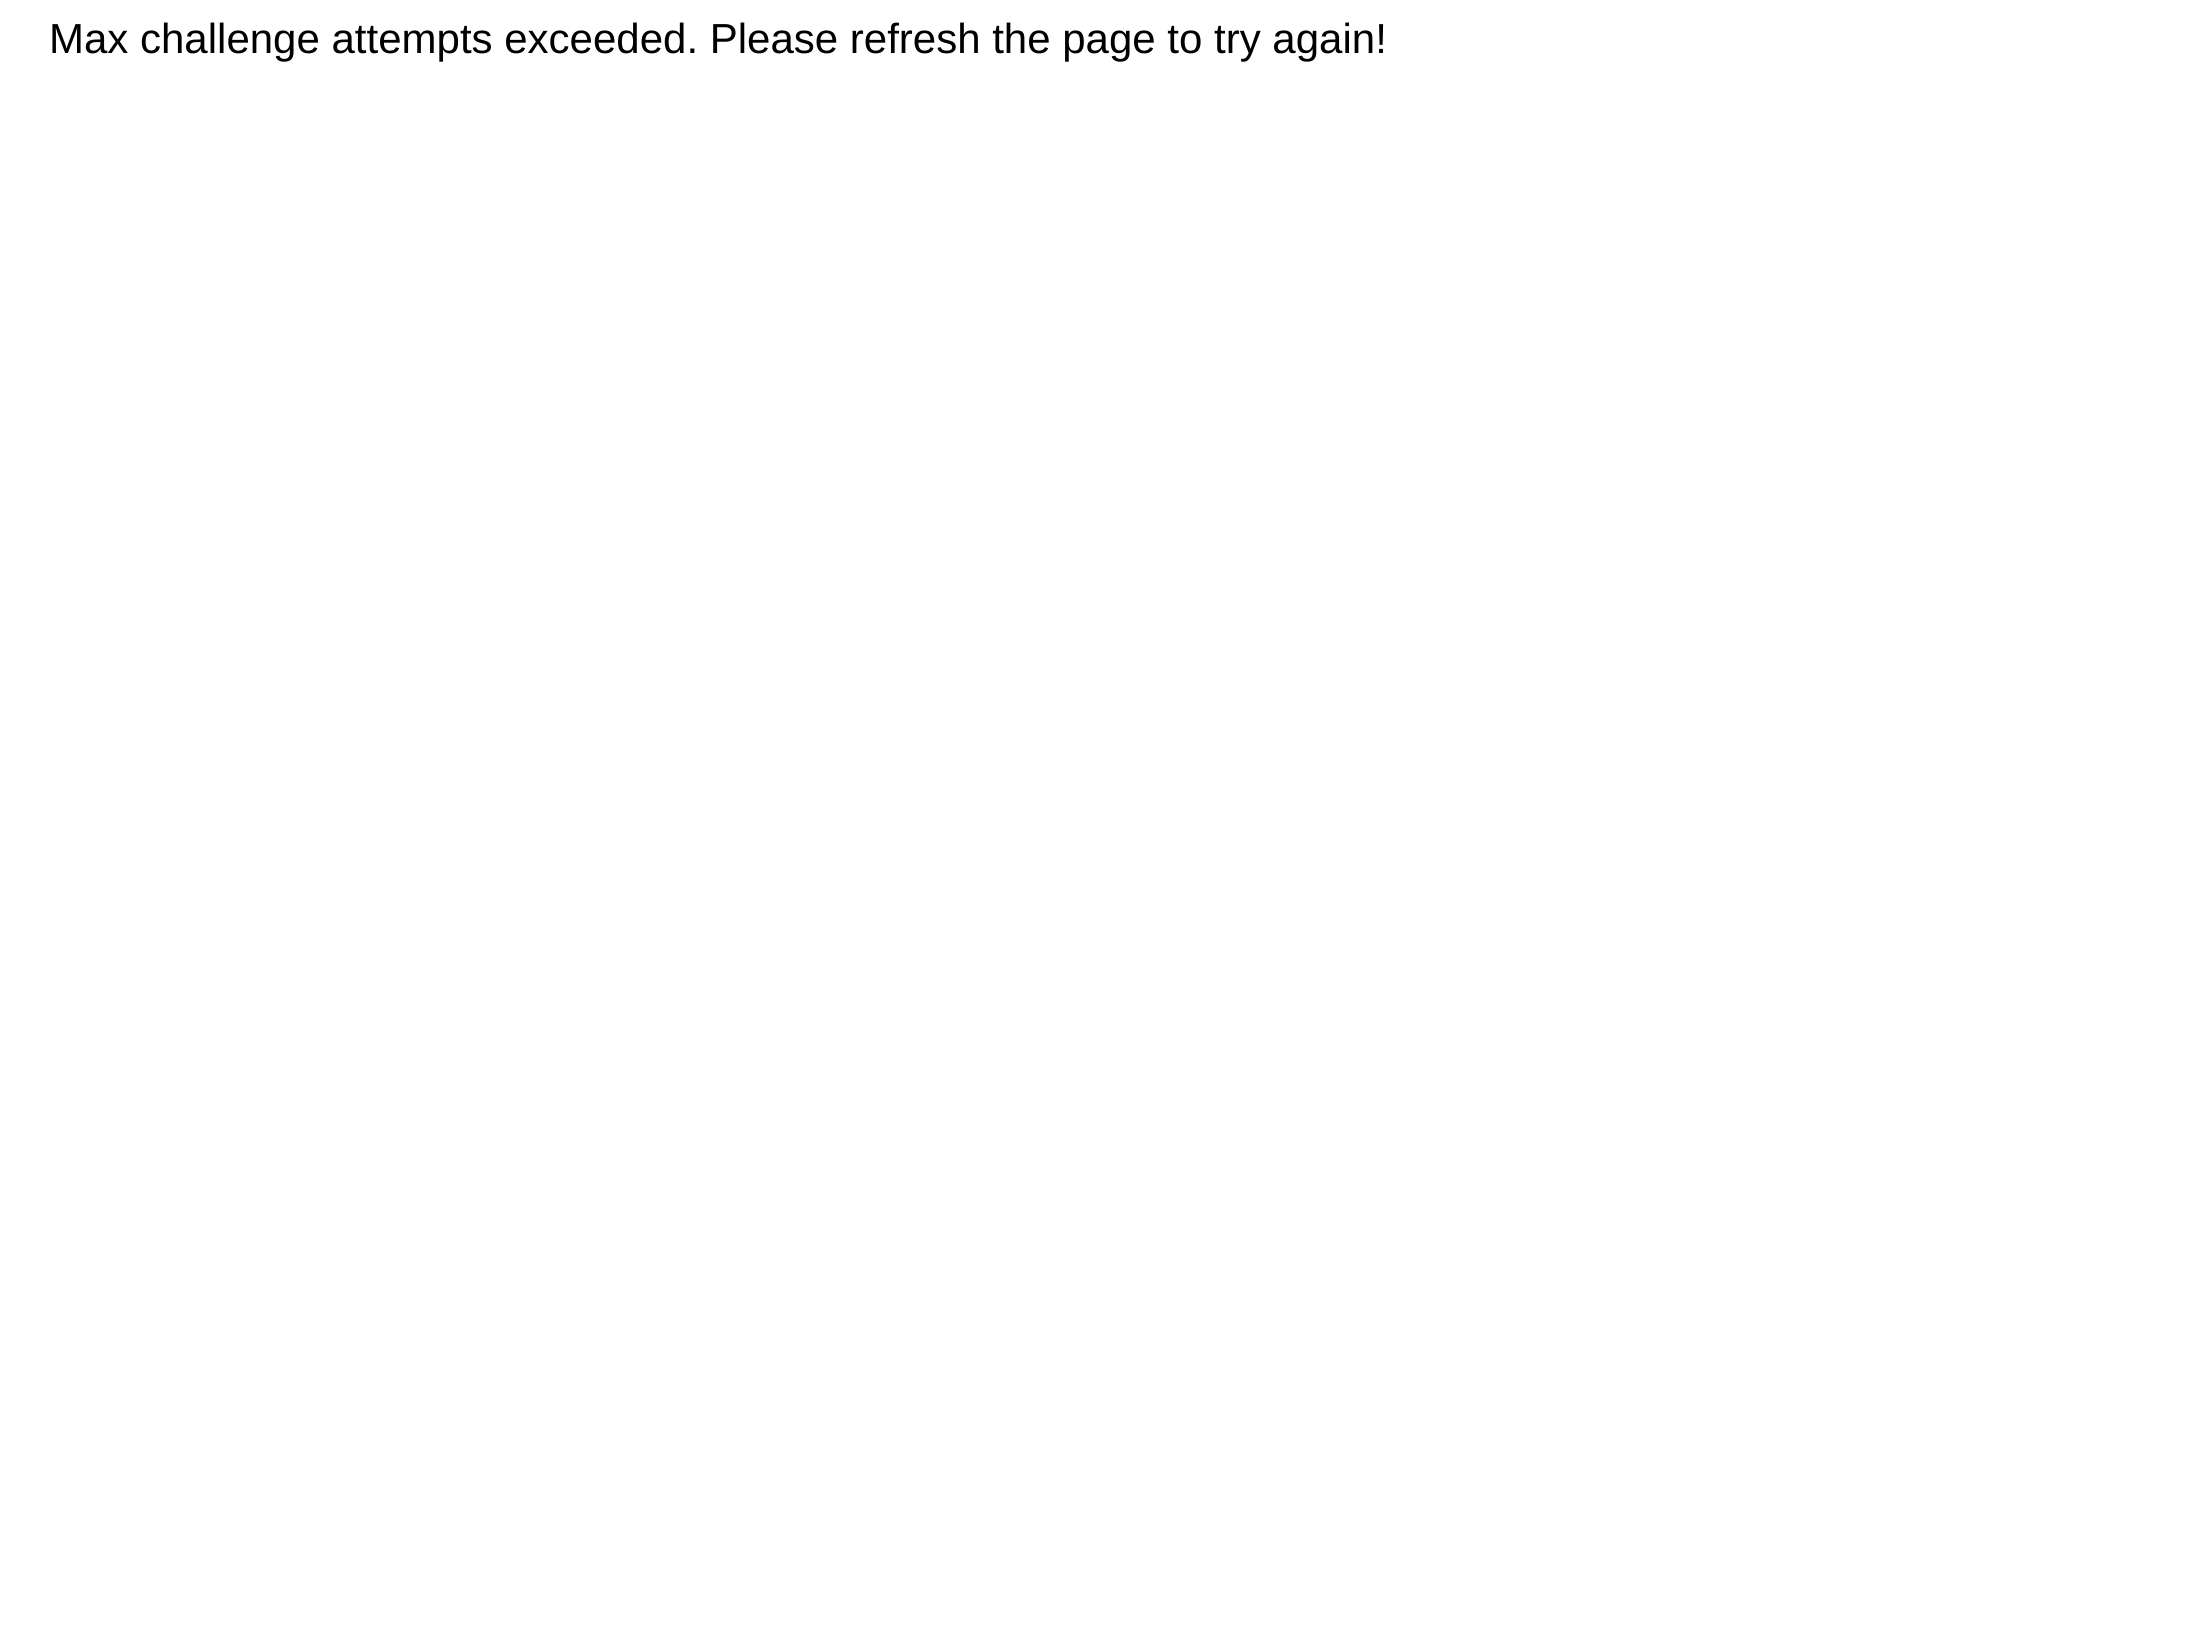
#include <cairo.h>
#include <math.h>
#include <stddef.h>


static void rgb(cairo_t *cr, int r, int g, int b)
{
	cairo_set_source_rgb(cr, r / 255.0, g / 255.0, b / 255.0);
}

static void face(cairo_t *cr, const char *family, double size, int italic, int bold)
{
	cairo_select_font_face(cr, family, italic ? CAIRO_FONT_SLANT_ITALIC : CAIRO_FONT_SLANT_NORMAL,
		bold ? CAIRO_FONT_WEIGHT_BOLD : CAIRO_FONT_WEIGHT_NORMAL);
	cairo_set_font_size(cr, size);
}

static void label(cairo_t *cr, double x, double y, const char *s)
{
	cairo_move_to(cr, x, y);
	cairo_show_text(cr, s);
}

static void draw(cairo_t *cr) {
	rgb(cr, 255, 255, 255);
	cairo_paint(cr);
	face(cr, "Liberation Sans", 42, 0, 0);
	rgb(cr, 0, 0, 0);
	label(cr, 49, 53, "Max challenge attempts exceeded. Please refresh the page to try again!");
}

int main(void) {
	cairo_surface_t *surface = cairo_image_surface_create(CAIRO_FORMAT_RGB24, 2192, 1633);
	cairo_t *cr = cairo_create(surface);
	cairo_font_options_t *options = cairo_font_options_create();
	cairo_font_options_set_hint_metrics(options, CAIRO_HINT_METRICS_OFF);
	cairo_font_options_set_hint_style(options, CAIRO_HINT_STYLE_NONE);
	cairo_set_font_options(cr, options);
	cairo_set_miter_limit(cr, 4);
	draw(cr);
	cairo_surface_write_to_png(surface, "render.png");
	cairo_font_options_destroy(options);
	cairo_destroy(cr);
	cairo_surface_destroy(surface);
	return 0;
}
